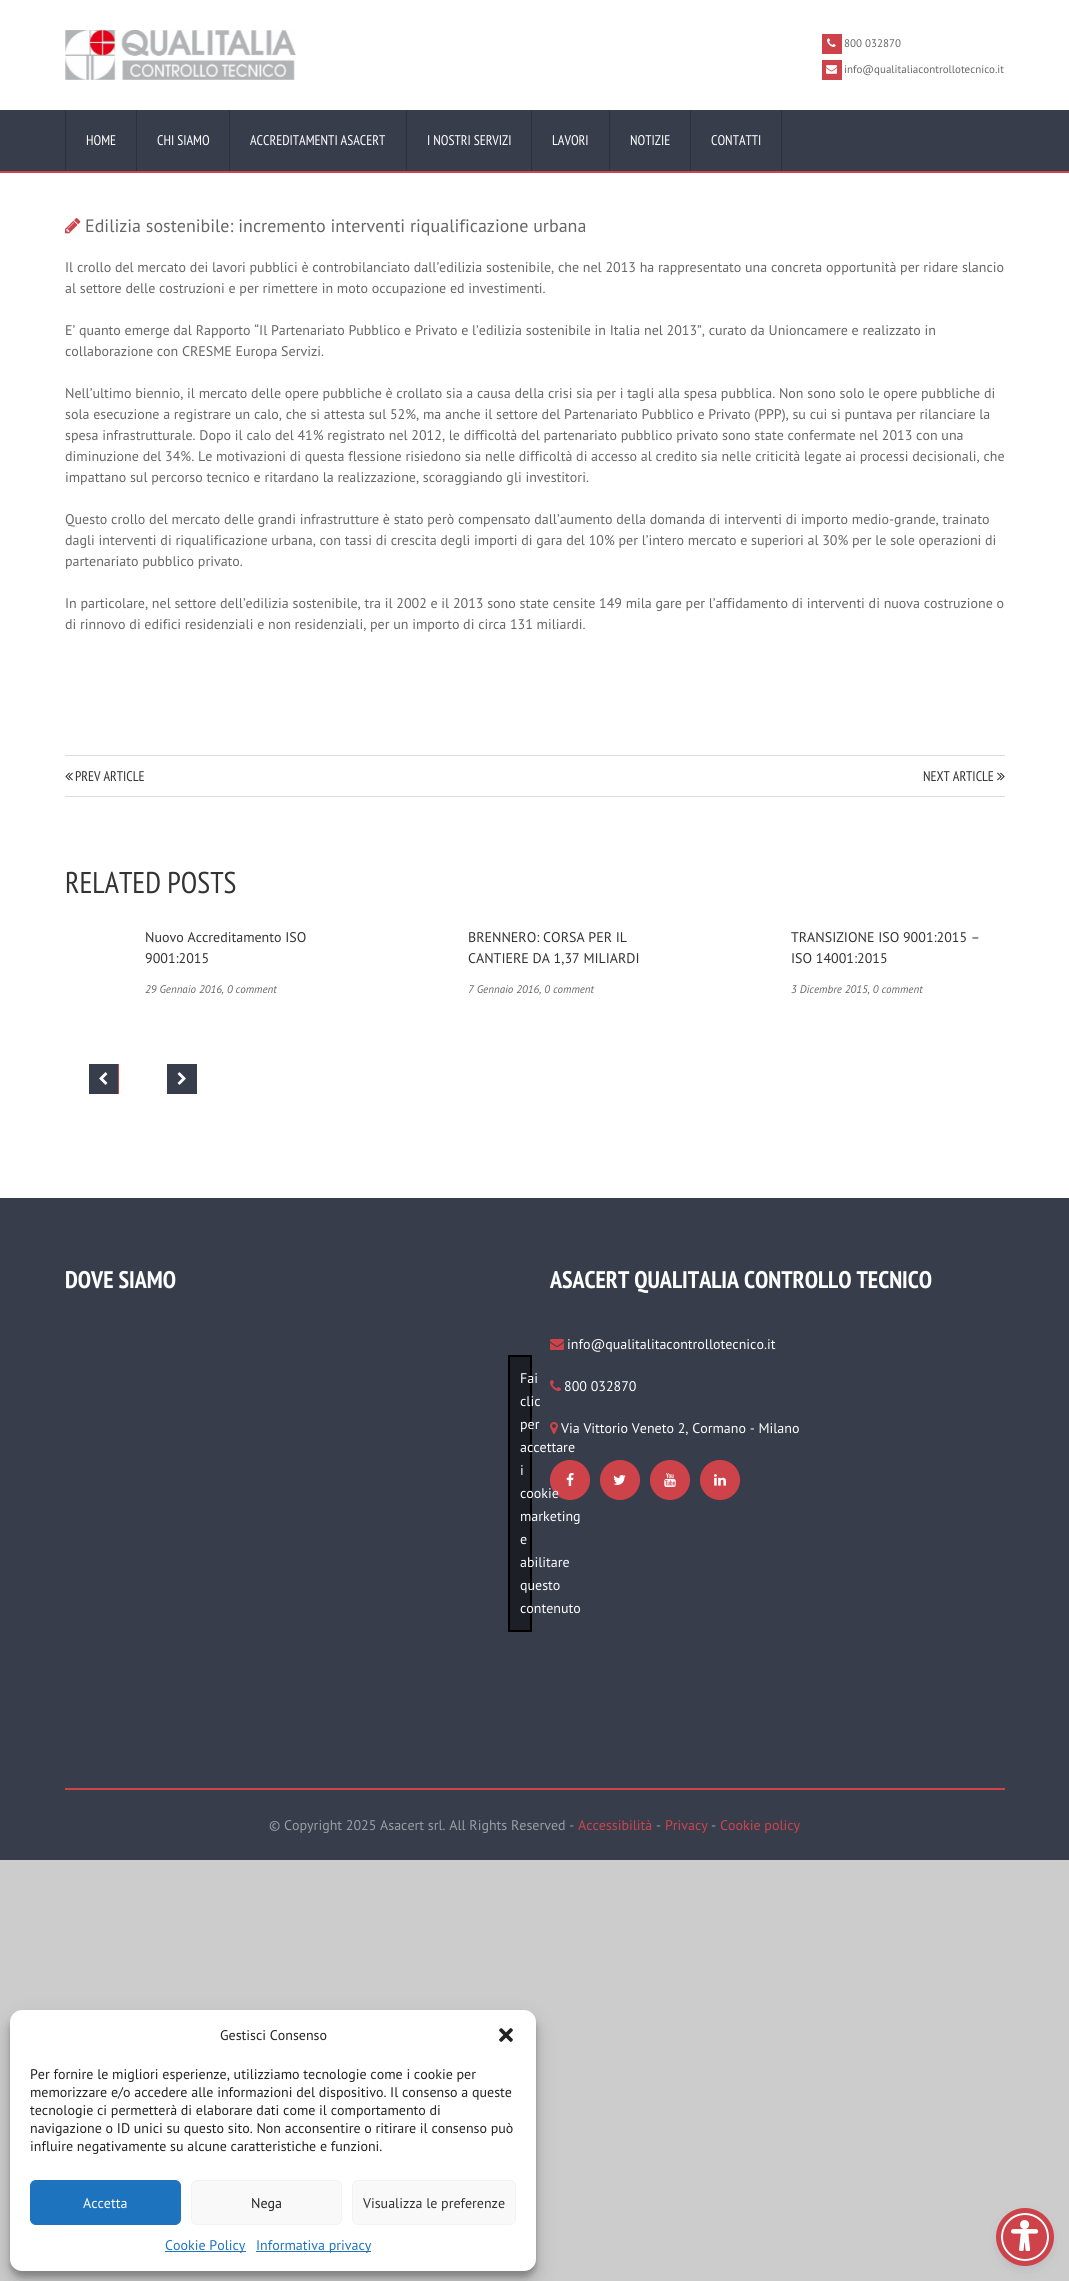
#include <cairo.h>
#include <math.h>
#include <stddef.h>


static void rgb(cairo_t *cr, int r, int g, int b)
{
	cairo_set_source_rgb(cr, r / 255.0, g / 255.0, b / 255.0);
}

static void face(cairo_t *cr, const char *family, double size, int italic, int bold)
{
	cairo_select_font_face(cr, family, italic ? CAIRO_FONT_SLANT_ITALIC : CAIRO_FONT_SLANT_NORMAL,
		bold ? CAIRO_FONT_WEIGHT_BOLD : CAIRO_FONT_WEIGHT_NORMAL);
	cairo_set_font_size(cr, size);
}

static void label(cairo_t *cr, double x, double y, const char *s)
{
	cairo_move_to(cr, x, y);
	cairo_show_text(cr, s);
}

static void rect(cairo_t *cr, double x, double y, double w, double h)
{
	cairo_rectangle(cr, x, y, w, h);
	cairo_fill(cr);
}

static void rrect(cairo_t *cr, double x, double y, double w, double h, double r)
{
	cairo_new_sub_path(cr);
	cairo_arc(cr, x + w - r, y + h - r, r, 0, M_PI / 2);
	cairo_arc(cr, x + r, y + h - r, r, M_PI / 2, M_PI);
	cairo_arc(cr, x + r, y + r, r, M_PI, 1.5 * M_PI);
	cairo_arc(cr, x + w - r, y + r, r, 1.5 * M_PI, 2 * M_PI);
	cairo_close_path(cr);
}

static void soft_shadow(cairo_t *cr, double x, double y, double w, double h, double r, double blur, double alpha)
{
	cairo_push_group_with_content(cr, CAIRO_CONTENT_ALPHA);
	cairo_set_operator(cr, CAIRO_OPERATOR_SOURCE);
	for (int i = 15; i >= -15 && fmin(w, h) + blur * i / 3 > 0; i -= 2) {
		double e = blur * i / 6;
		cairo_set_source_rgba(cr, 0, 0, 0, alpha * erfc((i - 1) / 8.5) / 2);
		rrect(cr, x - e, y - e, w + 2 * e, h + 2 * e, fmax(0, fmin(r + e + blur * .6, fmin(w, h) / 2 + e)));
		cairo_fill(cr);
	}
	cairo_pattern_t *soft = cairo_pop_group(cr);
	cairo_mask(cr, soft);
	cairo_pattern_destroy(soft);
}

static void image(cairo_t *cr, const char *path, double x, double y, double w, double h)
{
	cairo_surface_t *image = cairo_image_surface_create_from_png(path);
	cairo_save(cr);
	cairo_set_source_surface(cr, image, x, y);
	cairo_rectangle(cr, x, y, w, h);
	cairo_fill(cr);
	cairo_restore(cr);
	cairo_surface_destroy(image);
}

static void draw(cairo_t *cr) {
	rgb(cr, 204, 204, 204);
	cairo_paint(cr);
	rgb(cr, 255, 255, 255);
	rect(cr, 0, 173, 1069, 1025);
	rect(cr, 0, 0, 1069, 110);
	image(cr, "image0.png", 65, 30, 232, 50);
	rgb(cr, 206, 67, 74);
	rect(cr, 822, 34, 20, 20);
	image(cr, "image1.png", 827, 38, 9, 9);
	face(cr, "PT Sans", 11, 0, 0);
	rgb(cr, 102, 102, 102);
	label(cr, 844, 47, "800 032870");
	rgb(cr, 206, 67, 74);
	rect(cr, 822, 60, 20, 20);
	image(cr, "image2.png", 826, 65, 11, 9);
	rgb(cr, 102, 102, 102);
	label(cr, 844, 73, "info@qualitaliacontrollotecnico.it");
	rgb(cr, 55, 61, 75);
	rect(cr, 0, 110, 1069, 61);
	rgb(cr, 206, 67, 74);
	rect(cr, 0, 171, 1069, 2);
	rgb(cr, 44, 49, 60);
	rect(cr, 65, 110, 1, 61);
	rect(cr, 136, 110, 1, 61);
	face(cr, "PT Sans Narrow", 14, 0, 0);
	rgb(cr, 255, 255, 255);
	label(cr, 86, 145, "HOME");
	rgb(cr, 44, 49, 60);
	rect(cr, 229, 110, 1, 61);
	rgb(cr, 255, 255, 255);
	label(cr, 157, 145, "CHI SIAMO");
	rgb(cr, 44, 49, 60);
	rect(cr, 406, 110, 1, 61);
	rgb(cr, 255, 255, 255);
	label(cr, 250, 145, "ACCREDITAMENTI ASACERT");
	rgb(cr, 44, 49, 60);
	rect(cr, 531, 110, 1, 61);
	rgb(cr, 255, 255, 255);
	label(cr, 427, 145, "I NOSTRI SERVIZI");
	rgb(cr, 44, 49, 60);
	rect(cr, 609, 110, 1, 61);
	rgb(cr, 255, 255, 255);
	label(cr, 552, 145, "LAVORI");
	rgb(cr, 44, 49, 60);
	rect(cr, 690, 110, 1, 61);
	rgb(cr, 255, 255, 255);
	label(cr, 630, 145, "NOTIZIE");
	rgb(cr, 44, 49, 60);
	rect(cr, 781, 110, 1, 61);
	rgb(cr, 255, 255, 255);
	label(cr, 711, 145, "CONTATTI");
	image(cr, "image3.png", 65, 218, 16, 16);
	face(cr, "PT Sans", 18, 0, 0);
	rgb(cr, 102, 102, 102);
	label(cr, 85, 232, "Edilizia sostenibile: incremento interventi riqualificazione urbana");
	face(cr, "PT Sans", 14, 0, 0);
	label(cr, 65, 272, "Il crollo del mercato dei lavori pubblici è controbilanciato dall’edilizia sostenibile, che nel 2013 ha rappresentato una concreta opportunità per ridare slancio");
	label(cr, 65, 293, "al settore delle costruzioni e per rimettere in moto occupazione ed investimenti.");
	label(cr, 65, 335, "E’ quanto emerge dal Rapporto “Il Partenariato Pubblico e Privato e l’edilizia sostenibile in Italia nel 2013”, curato da Unioncamere e realizzato in");
	label(cr, 65, 356, "collaborazione con CRESME Europa Servizi.");
	label(cr, 65, 398, "Nell’ultimo biennio, il mercato delle opere pubbliche è crollato sia a causa della crisi sia per i tagli alla spesa pubblica. Non sono solo le opere pubbliche di");
	label(cr, 65, 419, "sola esecuzione a registrare un calo, che si attesta sul 52%, ma anche il settore del Partenariato Pubblico e Privato (PPP), su cui si puntava per rilanciare la");
	label(cr, 65, 440, "spesa infrastrutturale. Dopo il calo del 41% registrato nel 2012, le difficoltà del partenariato pubblico privato sono state confermate nel 2013 con una");
	label(cr, 65, 461, "diminuzione del 34%. Le motivazioni di questa flessione risiedono sia nelle difficoltà di accesso al credito sia nelle criticità legate ai processi decisionali, che");
	label(cr, 65, 482, "impattano sul percorso tecnico e ritardano la realizzazione, scoraggiando gli investitori.");
	label(cr, 65, 524, "Questo crollo del mercato delle grandi infrastrutture è stato però compensato dall’aumento della domanda di interventi di importo medio-grande, trainato");
	label(cr, 65, 545, "dagli interventi di riqualificazione urbana, con tassi di crescita degli importi di gara del 10% per l’intero mercato e superiori al 30% per le sole operazioni di");
	label(cr, 65, 566, "partenariato pubblico privato.");
	label(cr, 65, 608, "In particolare, nel settore dell’edilizia sostenibile, tra il 2002 e il 2013 sono state censite 149 mila gare per l’affidamento di interventi di nuova costruzione o");
	label(cr, 65, 629, "di rinnovo di edifici residenziali e non residenziali, per un importo di circa 131 miliardi.");
	rgb(cr, 221, 221, 221);
	rect(cr, 65, 755, 940, 1);
	rect(cr, 65, 796, 940, 1);
	image(cr, "image4.png", 65, 772, 8, 9);
	face(cr, "PT Sans Narrow", 14, 0, 0);
	rgb(cr, 51, 51, 51);
	label(cr, 75, 781, "PREV ARTICLE");
	label(cr, 923, 781, "NEXT ARTICLE");
	image(cr, "image5.png", 997, 772, 8, 9);
	face(cr, "PT Sans Narrow", 30, 0, 0);
	label(cr, 65, 893, "RELATED POSTS");
	face(cr, "PT Sans", 14, 0, 0);
	label(cr, 145, 942, "Nuovo Accreditamento ISO");
	label(cr, 145, 963, "9001:2015");
	face(cr, "PT Sans", 11, 1, 0);
	rgb(cr, 102, 102, 102);
	label(cr, 145, 993, "29 Gennaio 2016, 0 comment");
	face(cr, "PT Sans", 14, 0, 0);
	rgb(cr, 51, 51, 51);
	label(cr, 468, 942, "BRENNERO: CORSA PER IL");
	label(cr, 468, 963, "CANTIERE DA 1,37 MILIARDI");
	face(cr, "PT Sans", 11, 1, 0);
	rgb(cr, 102, 102, 102);
	label(cr, 468, 993, "7 Gennaio 2016, 0 comment");
	face(cr, "PT Sans", 14, 0, 0);
	rgb(cr, 51, 51, 51);
	label(cr, 791, 942, "TRANSIZIONE ISO 9001:2015 –");
	label(cr, 791, 963, "ISO 14001:2015");
	face(cr, "PT Sans", 11, 1, 0);
	rgb(cr, 102, 102, 102);
	label(cr, 791, 993, "3 Dicembre 2015, 0 comment");
	rgb(cr, 55, 61, 75);
	rect(cr, 89, 1064, 29, 30);
	rgb(cr, 206, 67, 74);
	rect(cr, 118, 1064, 1, 30);
	image(cr, "image6.png", 99, 1072, 9, 13);
	rgb(cr, 55, 61, 75);
	rect(cr, 167, 1064, 30, 30);
	image(cr, "image7.png", 177, 1072, 9, 13);
	rect(cr, 0, 1198, 1069, 662);
	face(cr, "PT Sans Narrow", 24, 0, 1);
	rgb(cr, 255, 255, 255);
	label(cr, 65, 1288, "DOVE SIAMO");
	rgb(cr, 28, 31, 38);
	cairo_rectangle(cr, 509, 1356, 22, 275);
	cairo_fill_preserve(cr);
	rgb(cr, 0, 0, 0);
	cairo_stroke(cr);
	face(cr, "PT Sans", 14, 0, 0);
	rgb(cr, 255, 255, 255);
	label(cr, 520, 1383, "Fai");
	label(cr, 520, 1406, "clic");
	label(cr, 520, 1429, "per");
	label(cr, 520, 1452, "accettare");
	label(cr, 520, 1475, "i");
	rgb(cr, 206, 67, 74);
	cairo_new_path(cr);
	cairo_arc(cr, 570, 1480, 20, 0, 2 * M_PI);
	cairo_fill(cr);
	rgb(cr, 255, 255, 255);
	label(cr, 520, 1498, "cookie");
	label(cr, 520, 1521, "marketing");
	label(cr, 520, 1544, "e");
	label(cr, 520, 1567, "abilitare");
	label(cr, 520, 1590, "questo");
	label(cr, 520, 1613, "contenuto");
	face(cr, "PT Sans Narrow", 24, 0, 1);
	label(cr, 550, 1288, "ASACERT QUALITALIA CONTROLLO TECNICO");
	image(cr, "image8.png", 550, 1339, 14, 11);
	face(cr, "PT Sans", 14, 0, 0);
	label(cr, 567, 1349, "info@qualitalitacontrollotecnico.it");
	image(cr, "image9.png", 550, 1380, 11, 11);
	label(cr, 564, 1391, "800 032870");
	image(cr, "image10.png", 550, 1422, 8, 12);
	label(cr, 561, 1433, "Via Vittorio Veneto 2, Cormano - Milano");
	image(cr, "image11.png", 566, 1473, 8, 13);
	rgb(cr, 206, 67, 74);
	cairo_arc(cr, 620, 1480, 20, 0, 2 * M_PI);
	cairo_fill(cr);
	image(cr, "image12.png", 613, 1475, 13, 10);
	cairo_arc(cr, 670, 1480, 20, 0, 2 * M_PI);
	cairo_fill(cr);
	image(cr, "image13.png", 664, 1473, 12, 14);
	cairo_arc(cr, 720, 1480, 20, 0, 2 * M_PI);
	cairo_fill(cr);
	image(cr, "image14.png", 714, 1474, 12, 12);
	rect(cr, 65, 1788, 940, 2);
	rgb(cr, 155, 158, 165);
	label(cr, 269, 1830, "© Copyright 2025 Asacert srl. All Rights Reserved -");
	rgb(cr, 206, 67, 74);
	label(cr, 578, 1830, "Accessibilità");
	rgb(cr, 155, 158, 165);
	label(cr, 656, 1830, "-");
	rgb(cr, 206, 67, 74);
	label(cr, 665, 1830, "Privacy");
	rgb(cr, 155, 158, 165);
	label(cr, 711, 1830, "-");
	rgb(cr, 206, 67, 74);
	label(cr, 720, 1830, "Cookie policy");
	rgb(cr, 0, 0, 0);
	soft_shadow(cr, 10, 2016, 526, 261, 12, 3, 0.23);
	soft_shadow(cr, 10, 2020, 526, 261, 12, 10, 0.19);
	rgb(cr, 255, 255, 255);
	rrect(cr, 10, 2010, 526, 261, 12);
	cairo_fill(cr);
	rgb(cr, 34, 34, 34);
	label(cr, 220, 2040, "Gestisci Consenso");
	image(cr, "image15.png", 499, 2028, 14, 14);
	label(cr, 30, 2079, "Per fornire le migliori esperienze, utilizziamo tecnologie come i cookie per");
	label(cr, 30, 2097, "memorizzare e/o accedere alle informazioni del dispositivo. Il consenso a queste");
	label(cr, 30, 2115, "tecnologie ci permetterà di elaborare dati come il comportamento di");
	label(cr, 30, 2133, "navigazione o ID unici su questo sito. Non acconsentire o ritirare il consenso può");
	label(cr, 30, 2151, "influire negativamente su alcune caratteristiche e funzioni.");
	rgb(cr, 30, 115, 190);
	rrect(cr, 30.5, 2180.5, 150, 44, 5.5);
	cairo_fill_preserve(cr);
	cairo_set_line_width(cr, 1);
	cairo_stroke(cr);
	rgb(cr, 255, 255, 255);
	label(cr, 83, 2208, "Accetta");
	rgb(cr, 249, 249, 249);
	rrect(cr, 191.5, 2180.5, 150, 44, 5.5);
	cairo_fill_preserve(cr);
	rgb(cr, 242, 242, 242);
	cairo_stroke(cr);
	rgb(cr, 34, 34, 34);
	label(cr, 251, 2208, "Nega");
	rgb(cr, 249, 249, 249);
	rrect(cr, 352.5, 2180.5, 163, 44, 5.5);
	cairo_fill_preserve(cr);
	rgb(cr, 242, 242, 242);
	cairo_stroke(cr);
	rgb(cr, 51, 51, 51);
	label(cr, 363, 2208, "Visualizza le preferenze");
	rgb(cr, 30, 115, 190);
	rect(cr, 165, 2251, 81, 1);
	label(cr, 165, 2250, "Cookie Policy");
	rect(cr, 256, 2251, 115, 1);
	label(cr, 256, 2250, "Informativa privacy");
	rgb(cr, 93, 100, 148);
	soft_shadow(cr, 1001, 2215, 48, 48, 24, 2, 0.2);
	rgb(cr, 37, 44, 97);
	soft_shadow(cr, 1001, 2218, 48, 48, 24, 7.5, 0.15);
	rgb(cr, 206, 67, 74);
	cairo_arc(cr, 1025, 2237, 23, 0, 2 * M_PI);
	cairo_fill_preserve(cr);
	rgb(cr, 255, 255, 255);
	cairo_set_line_width(cr, 2);
	cairo_stroke(cr);
	cairo_arc(cr, 1025, 2237, 26.5, 0, 2 * M_PI);
	rgb(cr, 206, 67, 74);
	cairo_set_line_width(cr, 5);
	cairo_stroke(cr);
	image(cr, "image16.png", 1011, 2220, 28, 31);
}

int main(void) {
	cairo_surface_t *surface = cairo_image_surface_create(CAIRO_FORMAT_RGB24, 1069, 2281);
	cairo_t *cr = cairo_create(surface);
	cairo_font_options_t *options = cairo_font_options_create();
	cairo_font_options_set_hint_metrics(options, CAIRO_HINT_METRICS_OFF);
	cairo_font_options_set_hint_style(options, CAIRO_HINT_STYLE_NONE);
	cairo_set_font_options(cr, options);
	cairo_set_miter_limit(cr, 4);
	draw(cr);
	cairo_surface_write_to_png(surface, "render.png");
	cairo_font_options_destroy(options);
	cairo_destroy(cr);
	cairo_surface_destroy(surface);
	return 0;
}
